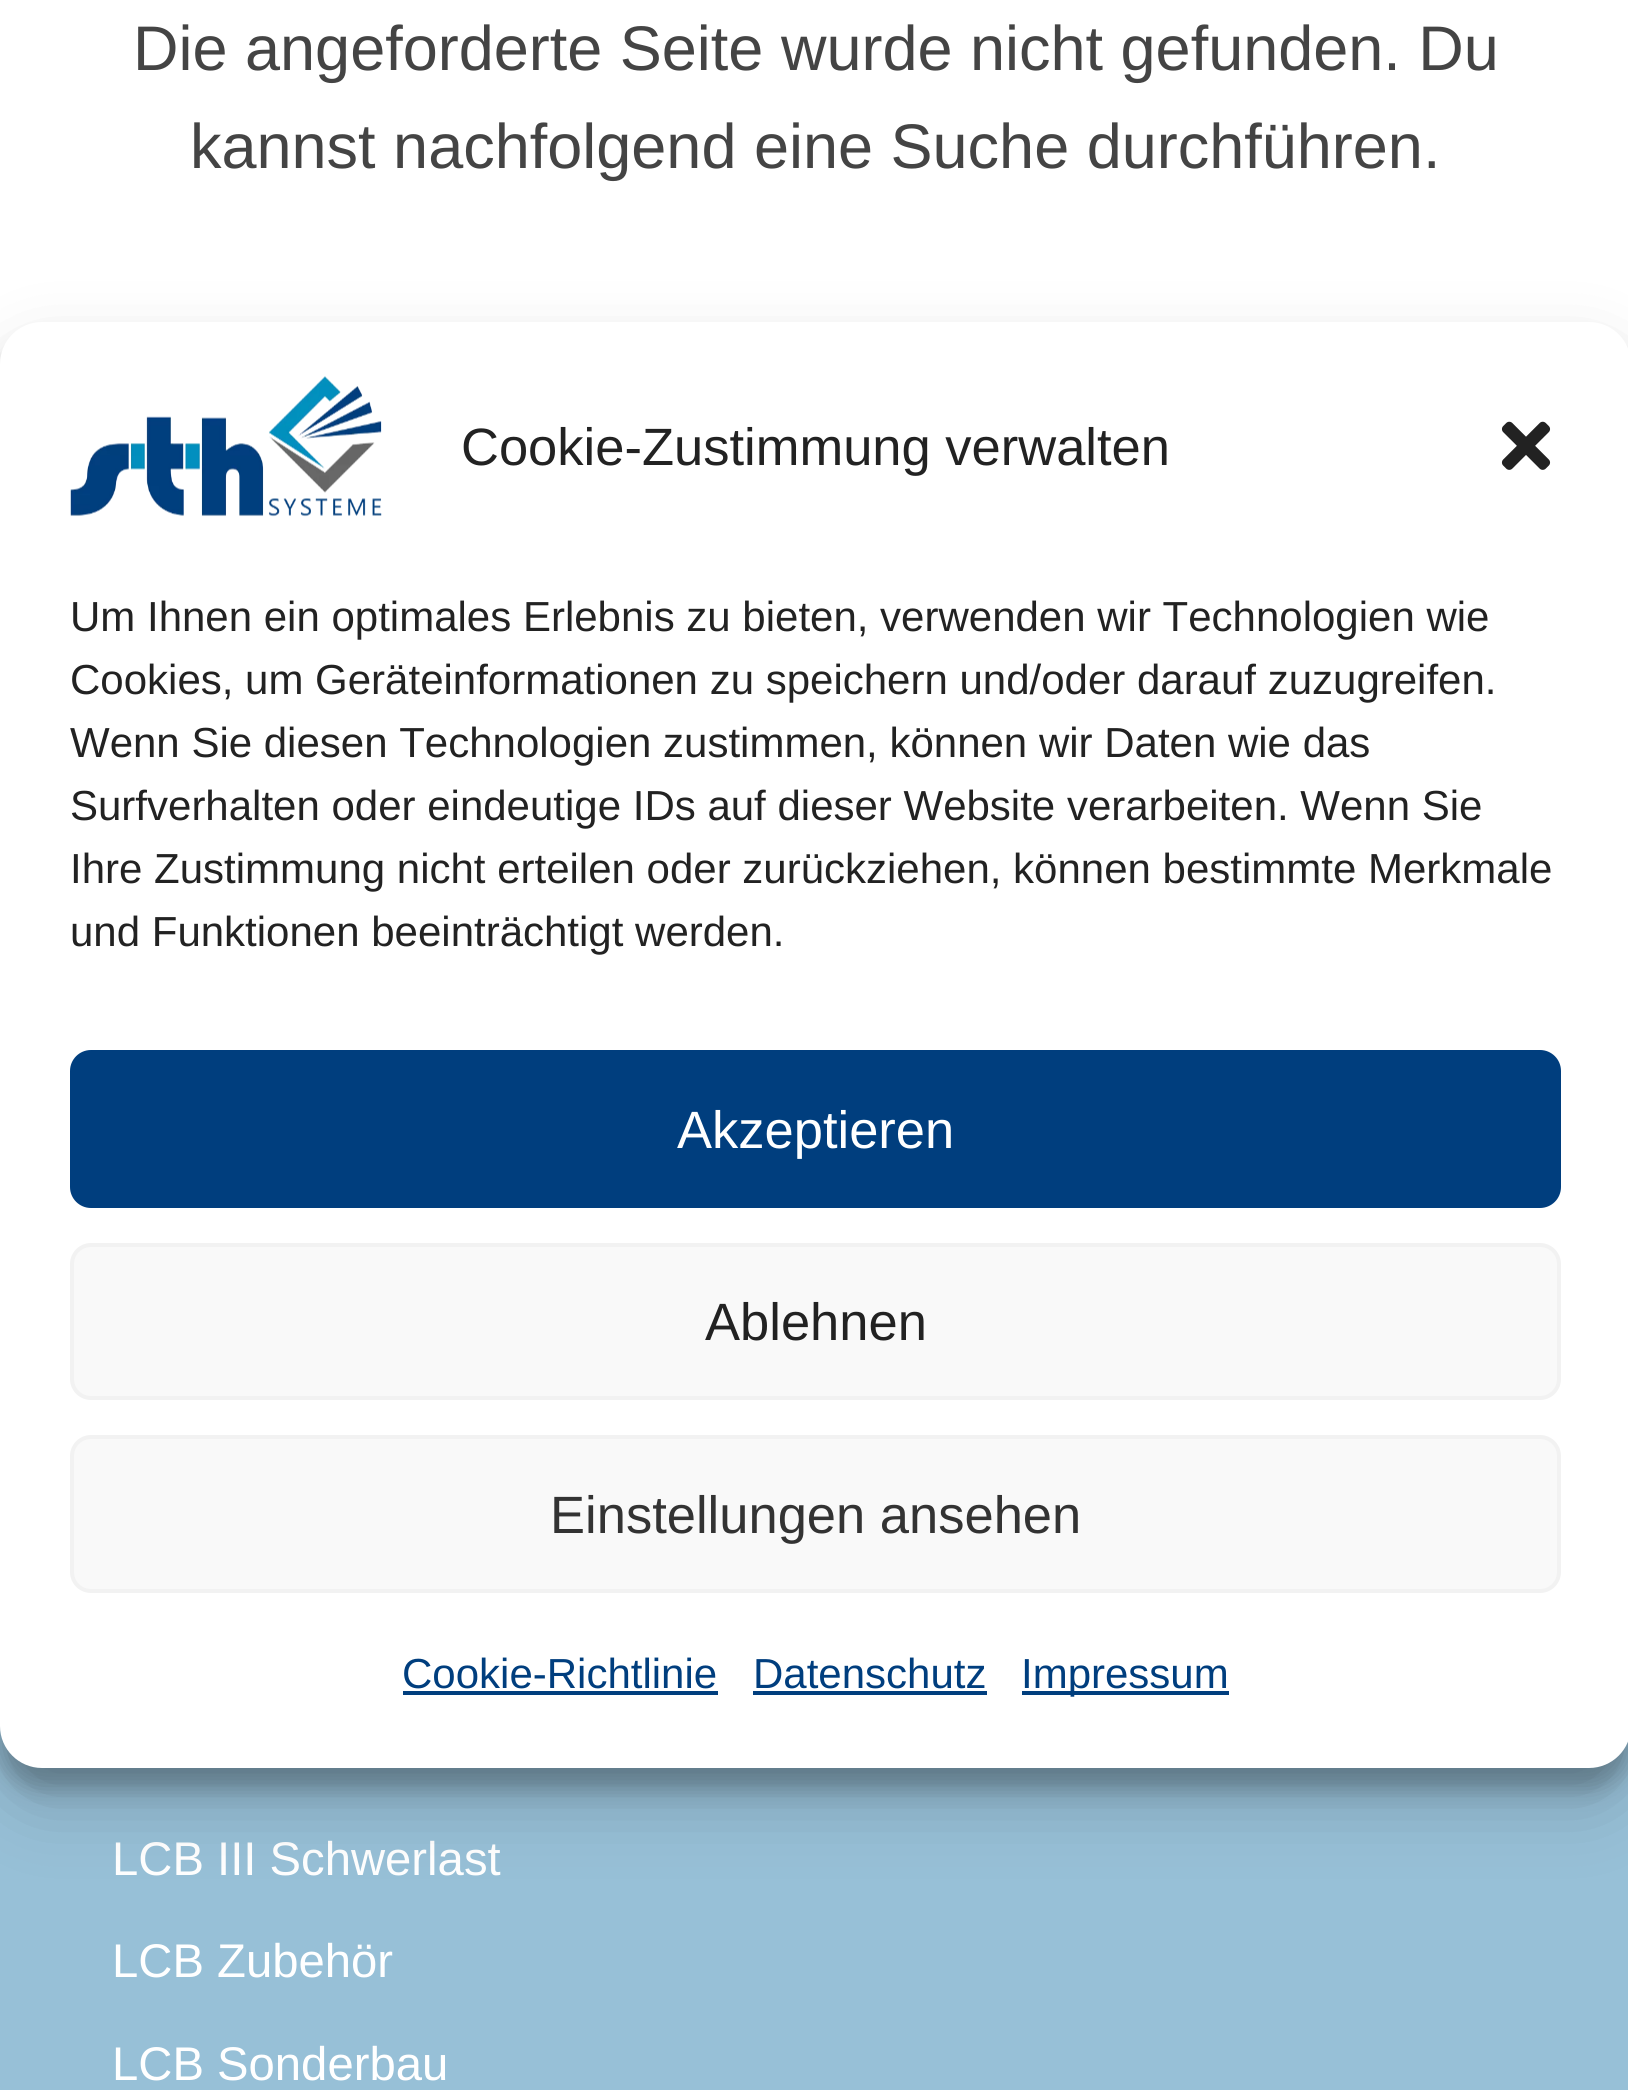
#include <cairo.h>
#include <math.h>
#include <stddef.h>


static void rgb(cairo_t *cr, int r, int g, int b)
{
	cairo_set_source_rgb(cr, r / 255.0, g / 255.0, b / 255.0);
}

static void face(cairo_t *cr, const char *family, double size, int italic, int bold)
{
	cairo_select_font_face(cr, family, italic ? CAIRO_FONT_SLANT_ITALIC : CAIRO_FONT_SLANT_NORMAL,
		bold ? CAIRO_FONT_WEIGHT_BOLD : CAIRO_FONT_WEIGHT_NORMAL);
	cairo_set_font_size(cr, size);
}

static void label(cairo_t *cr, double x, double y, const char *s)
{
	cairo_move_to(cr, x, y);
	cairo_show_text(cr, s);
}

static void rect(cairo_t *cr, double x, double y, double w, double h)
{
	cairo_rectangle(cr, x, y, w, h);
	cairo_fill(cr);
}

static void rrect(cairo_t *cr, double x, double y, double w, double h, double r)
{
	cairo_new_sub_path(cr);
	cairo_arc(cr, x + w - r, y + h - r, r, 0, M_PI / 2);
	cairo_arc(cr, x + r, y + h - r, r, M_PI / 2, M_PI);
	cairo_arc(cr, x + r, y + r, r, M_PI, 1.5 * M_PI);
	cairo_arc(cr, x + w - r, y + r, r, 1.5 * M_PI, 2 * M_PI);
	cairo_close_path(cr);
}

static void soft_shadow(cairo_t *cr, double x, double y, double w, double h, double r, double blur, double alpha)
{
	cairo_push_group_with_content(cr, CAIRO_CONTENT_ALPHA);
	cairo_set_operator(cr, CAIRO_OPERATOR_SOURCE);
	for (int i = 15; i >= -15 && fmin(w, h) + blur * i / 3 > 0; i -= 2) {
		double e = blur * i / 6;
		cairo_set_source_rgba(cr, 0, 0, 0, alpha * erfc((i - 1) / 8.5) / 2);
		rrect(cr, x - e, y - e, w + 2 * e, h + 2 * e, fmax(0, fmin(r + e + blur * .6, fmin(w, h) / 2 + e)));
		cairo_fill(cr);
	}
	cairo_pattern_t *soft = cairo_pop_group(cr);
	cairo_mask(cr, soft);
	cairo_pattern_destroy(soft);
}

static void image(cairo_t *cr, const char *path, double x, double y, double w, double h)
{
	cairo_surface_t *image = cairo_image_surface_create_from_png(path);
	cairo_save(cr);
	cairo_set_source_surface(cr, image, x, y);
	cairo_rectangle(cr, x, y, w, h);
	cairo_fill(cr);
	cairo_restore(cr);
	cairo_surface_destroy(image);
}

static void draw(cairo_t *cr) {
	rgb(cr, 255, 255, 255);
	cairo_paint(cr);
	face(cr, "Liberation Sans", 63, 0, 0);
	rgb(cr, 68, 68, 68);
	label(cr, 133, 70, "Die angeforderte Seite wurde nicht gefunden. Du");
	label(cr, 190, 168, "kannst nachfolgend eine Suche durchführen.");
	rgb(cr, 151, 192, 215);
	rect(cr, 0, 1726, 1628, 364);
	face(cr, "Liberation Sans", 47.25, 0, 0);
	rgb(cr, 255, 255, 255);
	label(cr, 112, 1875, "LCB III Schwerlast");
	label(cr, 112, 1977, "LCB Zubehör");
	label(cr, 112, 2080, "LCB Sonderbau");
	rgb(cr, 0, 0, 0);
	soft_shadow(cr, 0, 343, 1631, 1446, 42, 10.5, 0.23);
	soft_shadow(cr, 0, 357, 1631, 1446, 42, 35, 0.19);
	rgb(cr, 255, 255, 255);
	rrect(cr, 0, 322, 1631, 1446, 42);
	cairo_fill(cr);
	image(cr, "image0.png", 70, 376, 312, 141);
	face(cr, "Liberation Sans", 52.5, 0, 0);
	rgb(cr, 34, 34, 34);
	label(cr, 461, 465, "Cookie-Zustimmung verwalten");
	image(cr, "image1.png", 1501, 421, 50, 49);
	face(cr, "Liberation Sans", 42, 0, 0);
	label(cr, 70, 631, "Um Ihnen ein optimales Erlebnis zu bieten, verwenden wir Technologien wie");
	label(cr, 70, 694, "Cookies, um Geräteinformationen zu speichern und/oder darauf zuzugreifen.");
	label(cr, 70, 757, "Wenn Sie diesen Technologien zustimmen, können wir Daten wie das");
	label(cr, 70, 820, "Surfverhalten oder eindeutige IDs auf dieser Website verarbeiten. Wenn Sie");
	label(cr, 70, 883, "Ihre Zustimmung nicht erteilen oder zurückziehen, können bestimmte Merkmale");
	label(cr, 70, 946, "und Funktionen beeinträchtigt werden.");
	rgb(cr, 0, 62, 126);
	rrect(cr, 72, 1052, 1487, 154, 19);
	cairo_fill_preserve(cr);
	cairo_set_line_width(cr, 4);
	cairo_stroke(cr);
	face(cr, "Liberation Sans", 52.5, 0, 0);
	rgb(cr, 255, 255, 255);
	label(cr, 677, 1148, "Akzeptieren");
	rgb(cr, 249, 249, 249);
	rrect(cr, 72, 1245, 1487, 153, 19);
	cairo_fill_preserve(cr);
	rgb(cr, 242, 242, 242);
	cairo_stroke(cr);
	rgb(cr, 34, 34, 34);
	label(cr, 705, 1340, "Ablehnen");
	rgb(cr, 249, 249, 249);
	rrect(cr, 72, 1437, 1487, 154, 19);
	cairo_fill_preserve(cr);
	rgb(cr, 242, 242, 242);
	cairo_stroke(cr);
	rgb(cr, 51, 51, 51);
	label(cr, 550, 1533, "Einstellungen ansehen");
	face(cr, "Liberation Sans", 42, 0, 0);
	rgb(cr, 0, 62, 126);
	label(cr, 402, 1688, "Cookie-Richtlinie");
	rect(cr, 403, 1691, 315, 4);
	label(cr, 753, 1688, "Datenschutz");
	rect(cr, 753, 1691, 234, 4);
	rect(cr, 1022, 1691, 207, 4);
	label(cr, 1021, 1688, "Impressum");
}

int main(void) {
	cairo_surface_t *surface = cairo_image_surface_create(CAIRO_FORMAT_RGB24, 1628, 2090);
	cairo_t *cr = cairo_create(surface);
	cairo_font_options_t *options = cairo_font_options_create();
	cairo_font_options_set_hint_metrics(options, CAIRO_HINT_METRICS_OFF);
	cairo_font_options_set_hint_style(options, CAIRO_HINT_STYLE_NONE);
	cairo_set_font_options(cr, options);
	cairo_set_miter_limit(cr, 4);
	draw(cr);
	cairo_surface_write_to_png(surface, "render.png");
	cairo_font_options_destroy(options);
	cairo_destroy(cr);
	cairo_surface_destroy(surface);
	return 0;
}
